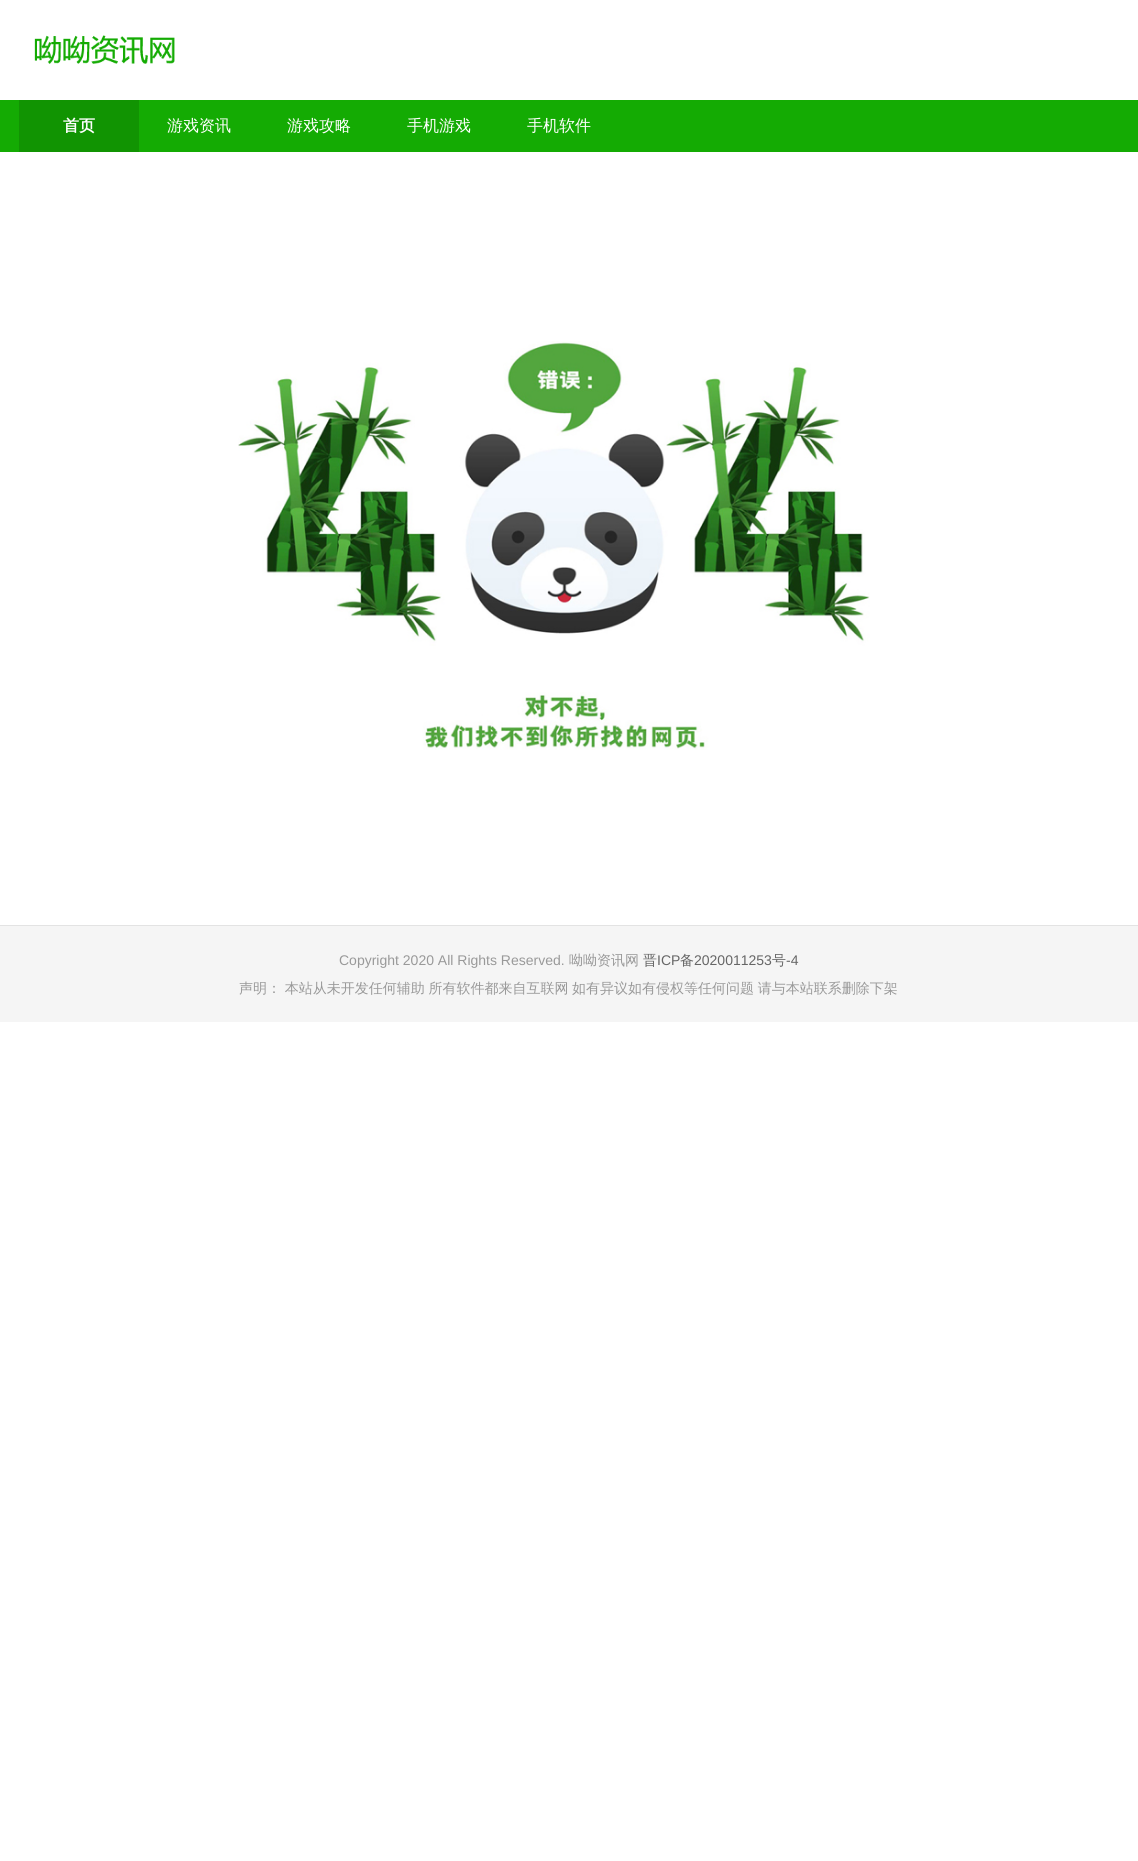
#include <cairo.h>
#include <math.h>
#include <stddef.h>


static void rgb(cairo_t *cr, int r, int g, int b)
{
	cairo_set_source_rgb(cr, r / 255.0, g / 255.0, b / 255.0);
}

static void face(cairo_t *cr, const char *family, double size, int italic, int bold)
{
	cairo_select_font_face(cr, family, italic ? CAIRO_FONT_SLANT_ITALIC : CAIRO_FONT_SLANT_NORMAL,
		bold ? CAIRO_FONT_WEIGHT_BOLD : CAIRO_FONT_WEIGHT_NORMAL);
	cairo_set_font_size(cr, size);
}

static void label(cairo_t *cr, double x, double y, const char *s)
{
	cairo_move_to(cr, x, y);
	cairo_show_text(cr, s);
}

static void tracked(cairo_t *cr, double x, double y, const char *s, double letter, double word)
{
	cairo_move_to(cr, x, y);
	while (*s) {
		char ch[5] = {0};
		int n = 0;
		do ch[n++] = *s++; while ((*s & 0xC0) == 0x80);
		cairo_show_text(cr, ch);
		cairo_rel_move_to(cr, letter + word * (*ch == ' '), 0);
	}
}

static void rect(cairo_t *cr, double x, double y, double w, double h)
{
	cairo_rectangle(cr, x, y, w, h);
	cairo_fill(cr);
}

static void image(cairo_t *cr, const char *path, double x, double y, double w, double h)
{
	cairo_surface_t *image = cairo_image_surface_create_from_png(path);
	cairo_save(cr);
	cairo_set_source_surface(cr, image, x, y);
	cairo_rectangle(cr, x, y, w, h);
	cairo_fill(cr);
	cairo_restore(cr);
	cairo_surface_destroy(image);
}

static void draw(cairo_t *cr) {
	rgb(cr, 255, 255, 255);
	cairo_paint(cr);
	image(cr, "image0.png", 34, 35, 141, 29);
	rgb(cr, 20, 171, 3);
	rect(cr, 0, 100, 1138, 52);
	rgb(cr, 17, 148, 2);
	rect(cr, 19, 100, 120, 52);
	face(cr, "WenQuanYi Zen Hei", 16, 0, 1);
	rgb(cr, 255, 255, 255);
	label(cr, 63, 131, "首页");
	face(cr, "WenQuanYi Zen Hei Medium", 16, 0, 0);
	label(cr, 167, 131, "游戏资讯");
	label(cr, 287, 131, "游戏攻略");
	label(cr, 407, 131, "手机游戏");
	label(cr, 527, 131, "手机软件");
	image(cr, "image1.png", 238, 341, 632, 409);
	rgb(cr, 245, 245, 245);
	rect(cr, 0, 926, 1138, 96);
	rgb(cr, 227, 227, 227);
	rect(cr, 0, 925, 1138, 1);
	face(cr, "Liberation Sans", 14, 0, 0);
	rgb(cr, 153, 153, 153);
	label(cr, 339, 965, "Copyright 2020 All Rights Reserved.");
	face(cr, "WenQuanYi Zen Hei Medium", 14, 0, 0);
	label(cr, 569, 965, "呦呦资讯网");
	rgb(cr, 102, 102, 102);
	label(cr, 643, 965, "晋");
	face(cr, "Liberation Sans", 14, 0, 0);
	label(cr, 657, 965, "ICP");
	face(cr, "WenQuanYi Zen Hei Medium", 14, 0, 0);
	label(cr, 680, 965, "备");
	face(cr, "Liberation Sans", 14, 0, 0);
	label(cr, 694, 965, "2020011253");
	face(cr, "WenQuanYi Zen Hei Medium", 14, 0, 0);
	label(cr, 772, 965, "号");
	face(cr, "Liberation Sans", 14, 0, 0);
	label(cr, 786, 965, "-4");
	face(cr, "WenQuanYi Zen Hei Medium", 14, 0, 0);
	rgb(cr, 153, 153, 153);
	tracked(cr, 239, 993, "声明： 本站从未开发任何辅助 所有软件都来自互联网 如有异议如有侵权等任何问题 请与本站联系删除下架", 0, -0.5);
}

int main(void) {
	cairo_surface_t *surface = cairo_image_surface_create(CAIRO_FORMAT_RGB24, 1138, 1861);
	cairo_t *cr = cairo_create(surface);
	cairo_font_options_t *options = cairo_font_options_create();
	cairo_font_options_set_hint_metrics(options, CAIRO_HINT_METRICS_OFF);
	cairo_font_options_set_hint_style(options, CAIRO_HINT_STYLE_NONE);
	cairo_set_font_options(cr, options);
	cairo_set_miter_limit(cr, 4);
	draw(cr);
	cairo_surface_write_to_png(surface, "render.png");
	cairo_font_options_destroy(options);
	cairo_destroy(cr);
	cairo_surface_destroy(surface);
	return 0;
}
